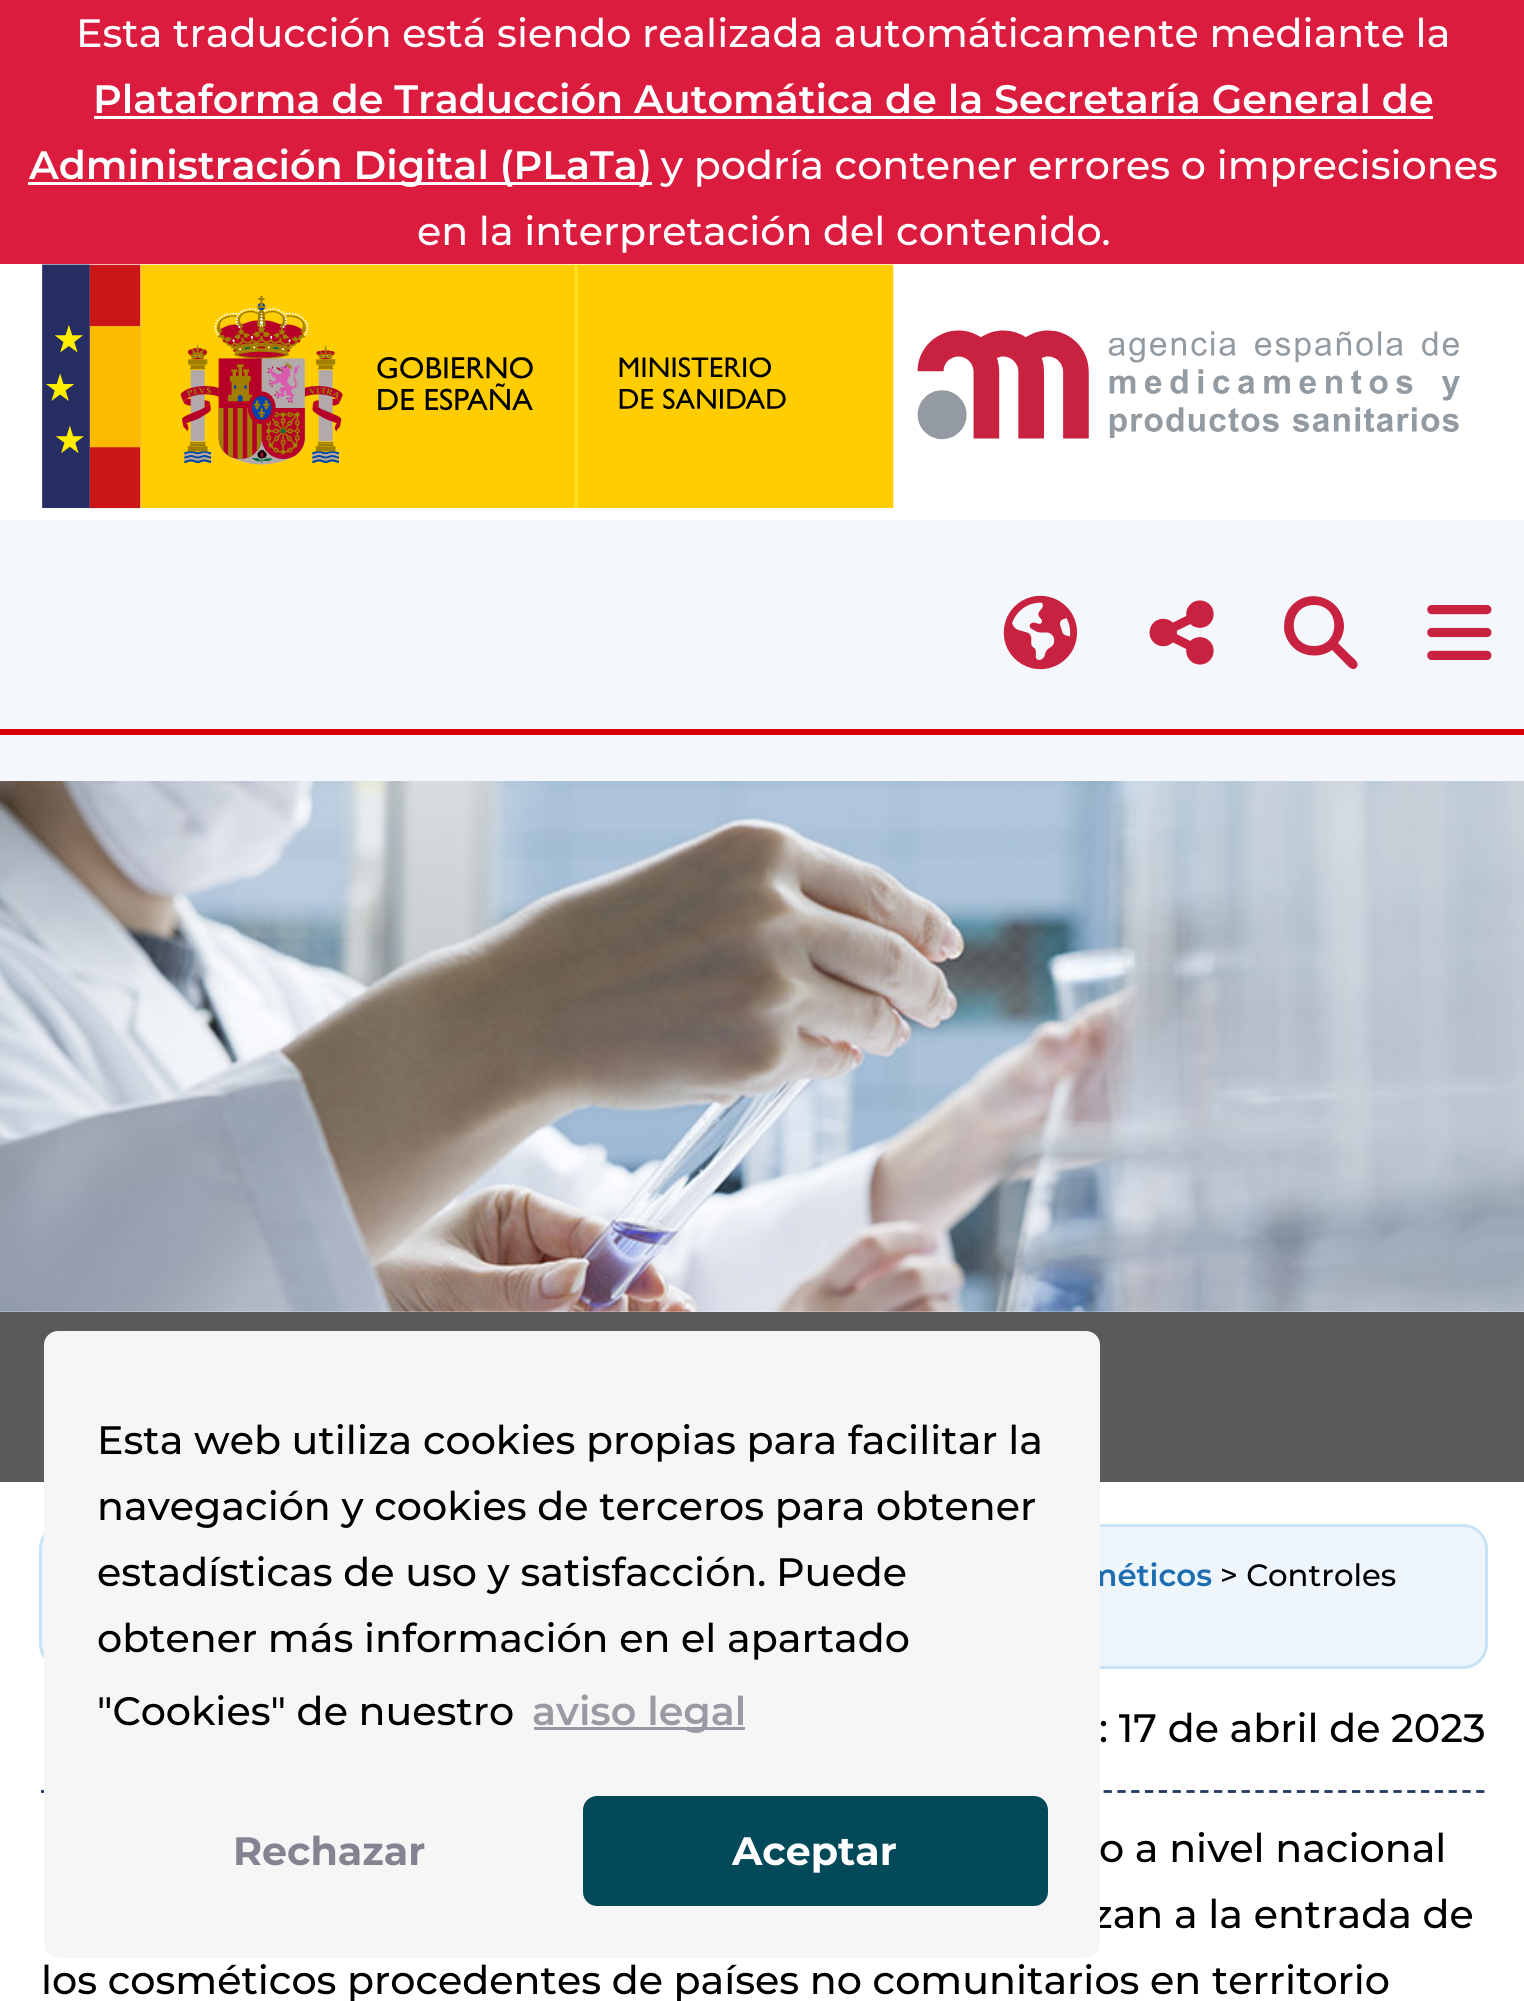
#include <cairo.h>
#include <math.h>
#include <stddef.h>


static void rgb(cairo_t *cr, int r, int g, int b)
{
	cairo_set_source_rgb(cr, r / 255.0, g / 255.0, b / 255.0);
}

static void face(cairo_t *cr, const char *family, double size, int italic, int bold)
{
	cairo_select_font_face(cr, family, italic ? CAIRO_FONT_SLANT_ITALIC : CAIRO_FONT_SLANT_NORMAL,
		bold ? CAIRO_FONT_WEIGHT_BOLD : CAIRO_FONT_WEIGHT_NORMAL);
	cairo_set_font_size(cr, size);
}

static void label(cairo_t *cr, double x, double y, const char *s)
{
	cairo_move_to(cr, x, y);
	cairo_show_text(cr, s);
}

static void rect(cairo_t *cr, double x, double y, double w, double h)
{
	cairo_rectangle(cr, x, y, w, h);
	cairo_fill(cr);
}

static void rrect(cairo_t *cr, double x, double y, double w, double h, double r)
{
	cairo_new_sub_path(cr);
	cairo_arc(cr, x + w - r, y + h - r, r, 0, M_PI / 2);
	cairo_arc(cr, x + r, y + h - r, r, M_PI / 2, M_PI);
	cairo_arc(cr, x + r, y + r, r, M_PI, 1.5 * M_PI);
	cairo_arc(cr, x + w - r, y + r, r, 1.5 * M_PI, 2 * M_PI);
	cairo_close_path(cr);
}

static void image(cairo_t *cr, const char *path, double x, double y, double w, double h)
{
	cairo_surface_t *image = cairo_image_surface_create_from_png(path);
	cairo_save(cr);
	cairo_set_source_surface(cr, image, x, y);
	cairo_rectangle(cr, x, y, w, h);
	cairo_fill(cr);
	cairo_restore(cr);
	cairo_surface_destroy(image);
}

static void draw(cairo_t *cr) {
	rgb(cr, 244, 247, 252);
	cairo_paint(cr);
	rgb(cr, 219, 28, 63);
	rect(cr, 0, 0, 1524, 264);
	face(cr, "Montserrat Medium", 39.6, 0, 0);
	rgb(cr, 255, 255, 255);
	label(cr, 76, 47, "Esta traducción está siendo realizada automáticamente mediante la");
	face(cr, "Montserrat SemiBold", 39.6, 0, 0);
	label(cr, 93, 113, "Plataforma de Traducción Automática de la Secretaría General de");
	rect(cr, 94, 116, 1339, 3);
	rect(cr, 28, 182, 624, 3);
	label(cr, 29, 179, "Administración Digital (PLaTa)");
	face(cr, "Montserrat Medium", 39.6, 0, 0);
	label(cr, 661, 179, "y podría contener errores o imprecisiones");
	label(cr, 417, 245, "en la interpretación del contenido.");
	rect(cr, 0, 264, 1524, 256);
	image(cr, "image0.png", 42, 264, 1418, 245);
	rgb(cr, 217, 0, 1);
	rect(cr, 0, 729, 1524, 6);
	image(cr, "image1.png", 1003, 595, 75, 75);
	image(cr, "image2.png", 1149, 600, 65, 65);
	rgb(cr, 201, 34, 65);
	cairo_new_path(cr);
	cairo_move_to(cr, 1344, 626);
	cairo_curve_to(cr, 1344, 632, 1342, 638, 1338, 643);
	cairo_line_to(cr, 1350, 655);
	cairo_curve_to(cr, 1353, 658, 1361, 663, 1356, 668);
	cairo_curve_to(cr, 1352, 672, 1346, 664, 1344, 662);
	cairo_line_to(cr, 1332, 650);
	cairo_curve_to(cr, 1321, 658, 1305, 657, 1295, 649);
	cairo_curve_to(cr, 1289, 644, 1285, 637, 1284, 629);
	cairo_curve_to(cr, 1284, 622, 1285, 615, 1289, 609);
	cairo_curve_to(cr, 1306, 585, 1343, 597, 1344, 626);
	cairo_close_path(cr);
	cairo_move_to(cr, 1314, 646);
	cairo_curve_to(cr, 1341, 646, 1341, 605, 1314, 605);
	cairo_curve_to(cr, 1287, 605, 1287, 646, 1314, 646);
	cairo_close_path(cr);
	cairo_fill(cr);
	image(cr, "image3.png", 1427, 605, 65, 55);
	rgb(cr, 255, 255, 255);
	rect(cr, 0, 1311, 1524, 690);
	rgb(cr, 90, 90, 90);
	rect(cr, 0, 1312, 1524, 170);
	rgb(cr, 238, 246, 252);
	rrect(cr, 41, 1526, 1444, 141, 22);
	cairo_fill(cr);
	rrect(cr, 40.5, 1525.5, 1446, 142, 23.5);
	rgb(cr, 199, 227, 245);
	cairo_set_line_width(cr, 3);
	cairo_stroke(cr);
	face(cr, "Montserrat SemiBold", 30.75, 0, 0);
	rgb(cr, 30, 109, 177);
	label(cr, 1085, 1586, "méticos");
	cairo_new_path(cr);
	cairo_move_to(cr, 41, 1791.5);
	cairo_line_to(cr, 1485, 1791.5);
	rgb(cr, 36, 58, 100);
	cairo_set_line_width(cr, 2.8);
	cairo_set_dash(cr, (double[]){8.25, 5.55}, 2, 0);
	cairo_stroke(cr);
	face(cr, "Montserrat Medium", 39.6, 0, 0);
	rgb(cr, 0, 0, 0);
	label(cr, 1092, 1928, "zan a la entrada de");
	rgb(cr, 246, 246, 246);
	rrect(cr, 44, 1331, 1056, 627, 14);
	cairo_fill(cr);
	rgb(cr, 0, 0, 0);
	label(cr, 97, 1454, "Esta web utiliza cookies propias para facilitar la");
	label(cr, 97, 1520, "navegación y cookies de terceros para obtener");
	label(cr, 97, 1586, "estadísticas de uso y satisfacción.");
	label(cr, 776, 1586, "Puede");
	label(cr, 97, 1652, "obtener más información en el apartado");
	label(cr, 97, 1725, "\"Cookies\" de nuestro");
	rgb(cr, 154, 154, 165);
	rect(cr, 534, 1727, 211, 3);
	face(cr, "Montserrat SemiBold", 39.6, 0, 0);
	label(cr, 532, 1725, "aviso legal");
	face(cr, "Montserrat", 39.6, 0, 1);
	rgb(cr, 131, 131, 145);
	label(cr, 233, 1865, "Rechazar");
	rgb(cr, 2, 73, 89);
	rrect(cr, 583, 1796, 465, 110, 14);
	cairo_fill(cr);
	rgb(cr, 255, 255, 255);
	label(cr, 732, 1865, "Aceptar");
	image(cr, "image4.png", 0, 781, 1524, 531);
	face(cr, "Montserrat Medium", 30.75, 0, 0);
	rgb(cr, 0, 0, 0);
	label(cr, 1220, 1586, "> Controles");
	face(cr, "Montserrat Medium", 39.6, 0, 0);
	label(cr, 1099, 1742, ": 17 de abril de 2023");
	label(cr, 1099, 1862, "o a nivel nacional");
	label(cr, 41, 1994, "los cosméticos procedentes de países no comunitarios en territorio");
}

int main(void) {
	cairo_surface_t *surface = cairo_image_surface_create(CAIRO_FORMAT_RGB24, 1524, 2001);
	cairo_t *cr = cairo_create(surface);
	cairo_font_options_t *options = cairo_font_options_create();
	cairo_font_options_set_hint_metrics(options, CAIRO_HINT_METRICS_OFF);
	cairo_font_options_set_hint_style(options, CAIRO_HINT_STYLE_NONE);
	cairo_set_font_options(cr, options);
	cairo_set_miter_limit(cr, 4);
	draw(cr);
	cairo_surface_write_to_png(surface, "render.png");
	cairo_font_options_destroy(options);
	cairo_destroy(cr);
	cairo_surface_destroy(surface);
	return 0;
}
